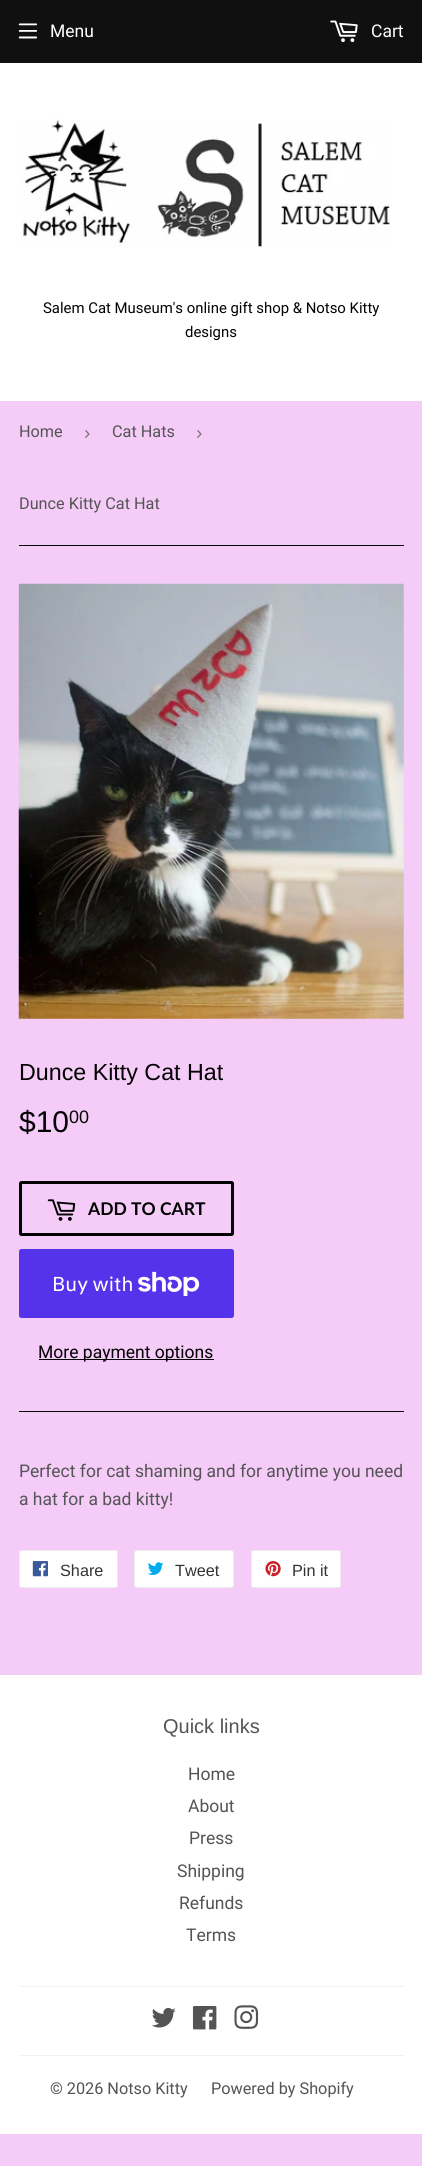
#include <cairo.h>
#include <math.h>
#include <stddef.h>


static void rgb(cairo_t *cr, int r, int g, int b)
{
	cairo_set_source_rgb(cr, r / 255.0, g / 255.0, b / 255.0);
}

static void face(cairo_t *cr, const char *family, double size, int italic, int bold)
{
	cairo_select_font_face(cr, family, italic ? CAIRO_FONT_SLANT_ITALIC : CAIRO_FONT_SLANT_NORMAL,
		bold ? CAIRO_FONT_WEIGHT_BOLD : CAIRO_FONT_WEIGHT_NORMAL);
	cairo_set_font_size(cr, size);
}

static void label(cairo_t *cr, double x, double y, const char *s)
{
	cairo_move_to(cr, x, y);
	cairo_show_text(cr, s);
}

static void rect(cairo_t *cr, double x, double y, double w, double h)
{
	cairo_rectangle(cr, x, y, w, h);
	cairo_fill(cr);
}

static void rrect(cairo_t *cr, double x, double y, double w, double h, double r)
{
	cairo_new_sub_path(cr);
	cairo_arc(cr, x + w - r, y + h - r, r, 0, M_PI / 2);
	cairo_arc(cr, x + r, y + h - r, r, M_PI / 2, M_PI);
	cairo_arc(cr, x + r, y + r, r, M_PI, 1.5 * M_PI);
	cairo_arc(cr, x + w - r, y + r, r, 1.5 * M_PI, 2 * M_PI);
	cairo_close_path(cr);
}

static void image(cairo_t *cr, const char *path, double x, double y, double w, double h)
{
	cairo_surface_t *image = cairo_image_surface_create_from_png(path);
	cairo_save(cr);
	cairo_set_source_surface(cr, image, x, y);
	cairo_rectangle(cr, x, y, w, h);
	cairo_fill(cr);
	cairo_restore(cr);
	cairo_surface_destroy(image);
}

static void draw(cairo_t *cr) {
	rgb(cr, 245, 204, 248);
	cairo_paint(cr);
	rgb(cr, 15, 16, 15);
	rect(cr, 0, 0, 422, 63);
	image(cr, "image0.png", 18, 23, 20, 16);
	face(cr, "Roboto", 17.5, 0, 0);
	rgb(cr, 255, 255, 255);
	label(cr, 50, 37, "Menu");
	image(cr, "image1.png", 330, 20, 28, 23);
	label(cr, 371, 37, "Cart");
	rect(cr, 0, 63, 422, 338);
	image(cr, "image2.png", 21, 119, 369, 129);
	face(cr, "Roboto", 14.9, 0, 0);
	rgb(cr, 2, 2, 2);
	label(cr, 43, 313, "Salem Cat Museum's online gift shop & Notso Kitty");
	label(cr, 185, 337, "designs");
	rect(cr, 19, 545, 385, 1);
	face(cr, "Roboto", 16.25, 0, 0);
	rgb(cr, 84, 84, 84);
	label(cr, 19, 437, "Home");
	face(cr, "Liberation Sans", 19, 0, 0);
	rgb(cr, 118, 118, 118);
	label(cr, 84, 439, "›");
	face(cr, "Roboto", 16.25, 0, 0);
	rgb(cr, 84, 84, 84);
	label(cr, 112, 437, "Cat Hats");
	face(cr, "Liberation Sans", 19, 0, 0);
	rgb(cr, 118, 118, 118);
	label(cr, 196, 439, "›");
	face(cr, "Roboto", 16.25, 0, 0);
	rgb(cr, 84, 84, 84);
	label(cr, 19, 509, "Dunce Kitty Cat Hat");
	image(cr, "image3.png", 18, 583, 386, 436);
	face(cr, "Liberation Sans", 23.25, 0, 0);
	rgb(cr, 2, 2, 2);
	label(cr, 19, 1080, "Dunce Kitty Cat Hat");
	face(cr, "Liberation Sans", 30, 0, 0);
	label(cr, 19, 1132, "$10");
	face(cr, "Liberation Sans", 18, 0, 0);
	label(cr, 69, 1123, "00");
	rrect(cr, 20.5, 1182.5, 212, 52, 1);
	cairo_set_line_width(cr, 3);
	cairo_stroke(cr);
	image(cr, "image4.png", 47, 1199, 29, 22);
	face(cr, "Lato", 17.5, 0, 1);
	label(cr, 88, 1215, "ADD TO CART");
	rgb(cr, 84, 51, 235);
	rrect(cr, 19, 1249, 215, 69, 2.5);
	cairo_fill(cr);
	face(cr, "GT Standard", 20, 0, 0);
	rgb(cr, 255, 255, 255);
	label(cr, 52, 1291, "Buy with");
	image(cr, "image5.png", 138, 1271, 62, 25);
	rgb(cr, 2, 2, 2);
	rect(cr, 39, 1359, 175, 1);
	face(cr, "Roboto", 17.5, 0, 0);
	label(cr, 38, 1358, "More payment options");
	rect(cr, 19, 1411, 385, 1);
	rgb(cr, 84, 84, 84);
	label(cr, 19, 1477, "Perfect for cat shaming and for anytime you need");
	label(cr, 19, 1505, "a hat for a bad kitty!");
	rgb(cr, 255, 255, 255);
	rrect(cr, 19.5, 1550.5, 98, 37, 2);
	cairo_fill_preserve(cr);
	rgb(cr, 236, 236, 236);
	cairo_set_line_width(cr, 1);
	cairo_stroke(cr);
	image(cr, "image6.png", 32, 1561, 16, 16);
	face(cr, "Liberation Sans", 16.25, 0, 0);
	rgb(cr, 51, 51, 51);
	label(cr, 60, 1576, "Share");
	rgb(cr, 255, 255, 255);
	rrect(cr, 134.5, 1550.5, 99, 37, 2);
	cairo_fill_preserve(cr);
	rgb(cr, 236, 236, 236);
	cairo_stroke(cr);
	image(cr, "image7.png", 147, 1562, 17, 13);
	rgb(cr, 51, 51, 51);
	label(cr, 175, 1576, "Tweet");
	rgb(cr, 255, 255, 255);
	rrect(cr, 251.5, 1550.5, 89, 37, 2);
	cairo_fill_preserve(cr);
	rgb(cr, 236, 236, 236);
	cairo_stroke(cr);
	image(cr, "image8.png", 265, 1561, 16, 16);
	rgb(cr, 51, 51, 51);
	label(cr, 292, 1576, "Pin it");
	rgb(cr, 255, 255, 255);
	rect(cr, 0, 1675, 422, 459);
	face(cr, "Liberation Sans", 20, 0, 0);
	rgb(cr, 84, 84, 84);
	label(cr, 163, 1733, "Quick links");
	face(cr, "Roboto", 17.5, 0, 0);
	label(cr, 188, 1780, "Home");
	label(cr, 188, 1812, "About");
	label(cr, 189, 1844, "Press");
	label(cr, 177, 1877, "Shipping");
	label(cr, 179, 1909, "Refunds");
	label(cr, 186, 1941, "Terms");
	rgb(cr, 242, 242, 242);
	rect(cr, 19, 1986, 385, 1);
	image(cr, "image9.png", 151, 2007, 25, 21);
	image(cr, "image10.png", 192, 2006, 25, 24);
	image(cr, "image11.png", 234, 2005, 25, 24);
	rect(cr, 19, 2055, 385, 1);
	face(cr, "Roboto", 16.25, 0, 0);
	rgb(cr, 84, 84, 84);
	label(cr, 50, 2094, "© 2026 Notso Kitty");
	label(cr, 211, 2094, "Powered by Shopify");
}

int main(void) {
	cairo_surface_t *surface = cairo_image_surface_create(CAIRO_FORMAT_RGB24, 422, 2166);
	cairo_t *cr = cairo_create(surface);
	cairo_font_options_t *options = cairo_font_options_create();
	cairo_font_options_set_hint_metrics(options, CAIRO_HINT_METRICS_OFF);
	cairo_font_options_set_hint_style(options, CAIRO_HINT_STYLE_NONE);
	cairo_set_font_options(cr, options);
	cairo_set_miter_limit(cr, 4);
	draw(cr);
	cairo_surface_write_to_png(surface, "render.png");
	cairo_font_options_destroy(options);
	cairo_destroy(cr);
	cairo_surface_destroy(surface);
	return 0;
}
